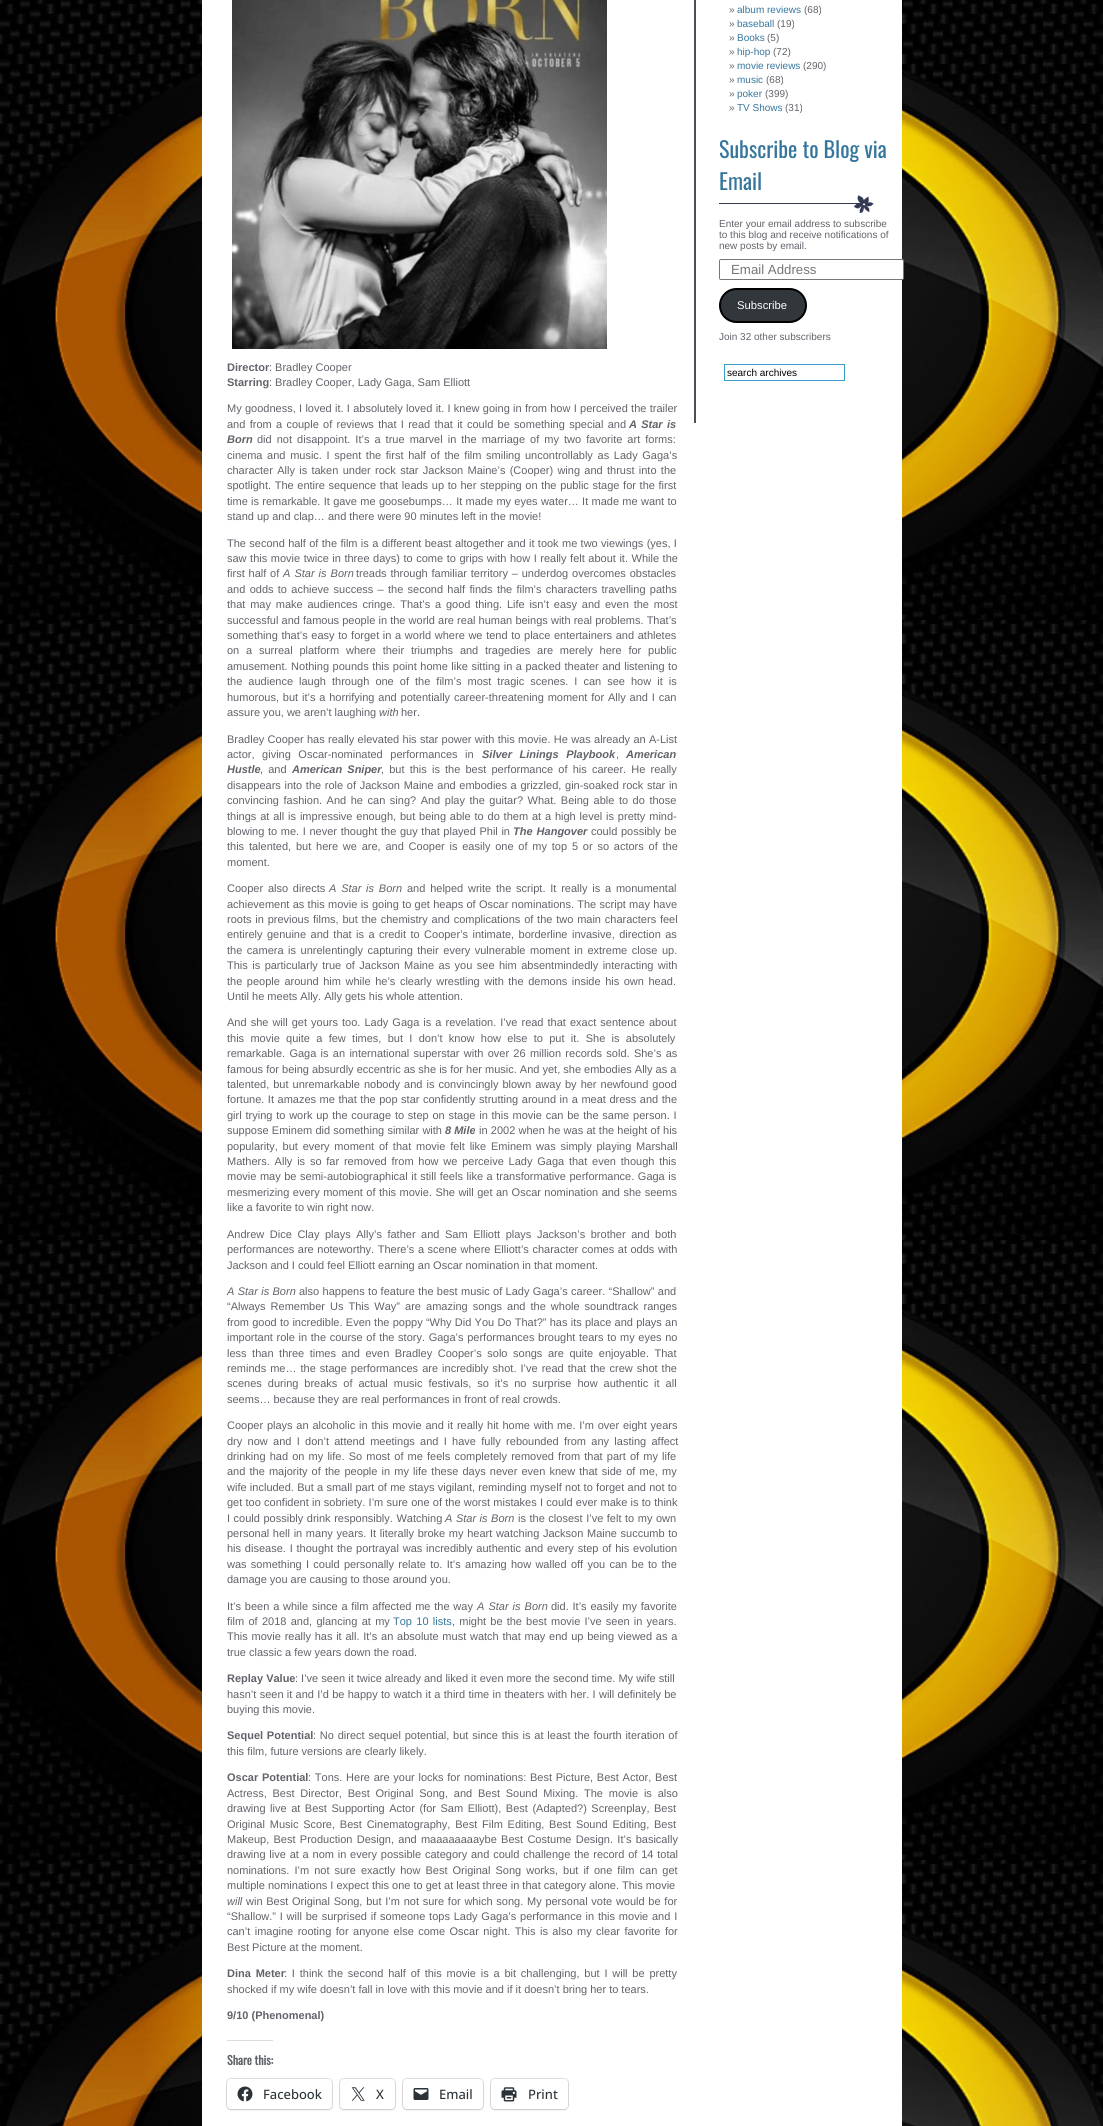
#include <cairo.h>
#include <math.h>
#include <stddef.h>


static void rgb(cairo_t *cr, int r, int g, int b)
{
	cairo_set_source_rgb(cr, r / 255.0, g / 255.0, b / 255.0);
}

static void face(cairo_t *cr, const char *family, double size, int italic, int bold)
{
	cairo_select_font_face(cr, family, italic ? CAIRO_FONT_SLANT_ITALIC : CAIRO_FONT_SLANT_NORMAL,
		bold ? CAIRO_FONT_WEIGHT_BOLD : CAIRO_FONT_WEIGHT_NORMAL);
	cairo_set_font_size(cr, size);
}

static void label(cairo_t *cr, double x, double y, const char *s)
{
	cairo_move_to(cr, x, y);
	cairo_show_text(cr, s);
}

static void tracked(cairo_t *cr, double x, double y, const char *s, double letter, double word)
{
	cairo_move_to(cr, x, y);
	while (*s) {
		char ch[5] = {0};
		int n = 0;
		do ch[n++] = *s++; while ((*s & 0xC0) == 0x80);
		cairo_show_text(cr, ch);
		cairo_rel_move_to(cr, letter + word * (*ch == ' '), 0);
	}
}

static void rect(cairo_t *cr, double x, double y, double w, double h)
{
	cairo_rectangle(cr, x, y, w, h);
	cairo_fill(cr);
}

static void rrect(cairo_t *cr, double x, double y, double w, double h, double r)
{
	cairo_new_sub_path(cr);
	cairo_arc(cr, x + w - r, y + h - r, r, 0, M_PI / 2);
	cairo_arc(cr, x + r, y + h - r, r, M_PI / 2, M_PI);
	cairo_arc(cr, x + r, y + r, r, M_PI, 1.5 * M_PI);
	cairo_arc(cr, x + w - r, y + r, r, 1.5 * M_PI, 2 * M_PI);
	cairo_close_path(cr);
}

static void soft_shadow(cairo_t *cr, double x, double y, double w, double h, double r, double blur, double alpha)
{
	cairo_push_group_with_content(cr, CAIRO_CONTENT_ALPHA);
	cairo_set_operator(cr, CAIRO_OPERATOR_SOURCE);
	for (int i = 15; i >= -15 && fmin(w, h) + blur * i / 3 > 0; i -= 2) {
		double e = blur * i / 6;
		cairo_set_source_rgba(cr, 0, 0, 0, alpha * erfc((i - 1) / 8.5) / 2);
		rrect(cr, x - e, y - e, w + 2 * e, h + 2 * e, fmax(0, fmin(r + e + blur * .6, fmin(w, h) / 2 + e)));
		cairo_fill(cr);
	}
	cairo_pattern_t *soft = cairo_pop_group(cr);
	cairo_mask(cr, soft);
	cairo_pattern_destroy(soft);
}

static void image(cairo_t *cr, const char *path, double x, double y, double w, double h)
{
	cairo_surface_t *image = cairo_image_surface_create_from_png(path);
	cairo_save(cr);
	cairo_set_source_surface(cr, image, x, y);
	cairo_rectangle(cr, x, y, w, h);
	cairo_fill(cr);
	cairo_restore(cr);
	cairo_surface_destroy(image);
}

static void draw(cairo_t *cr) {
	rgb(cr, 255, 255, 255);
	cairo_paint(cr);
	image(cr, "image0.png", 0, 0, 1103, 2126);
	rgb(cr, 255, 255, 255);
	rect(cr, 202, 0, 700, 2126);
	rgb(cr, 76, 79, 88);
	rect(cr, 694, 0, 2, 423);
	face(cr, "Liberation Sans", 10, 0, 0);
	rgb(cr, 97, 99, 106);
	label(cr, 729, 13, "»");
	rgb(cr, 54, 118, 156);
	label(cr, 737, 13, "album reviews");
	rgb(cr, 97, 99, 106);
	label(cr, 804, 13, "(68)");
	label(cr, 729, 27, "»");
	rgb(cr, 54, 118, 156);
	label(cr, 737, 27, "baseball");
	rgb(cr, 97, 99, 106);
	label(cr, 777, 27, "(19)");
	label(cr, 729, 41, "»");
	rgb(cr, 54, 118, 156);
	label(cr, 737, 41, "Books");
	rgb(cr, 97, 99, 106);
	label(cr, 767, 41, "(5)");
	label(cr, 729, 55, "»");
	rgb(cr, 54, 118, 156);
	label(cr, 737, 55, "hip-hop");
	rgb(cr, 97, 99, 106);
	label(cr, 773, 55, "(72)");
	label(cr, 729, 69, "»");
	rgb(cr, 54, 118, 156);
	label(cr, 737, 69, "movie reviews");
	rgb(cr, 97, 99, 106);
	label(cr, 803, 69, "(290)");
	label(cr, 729, 83, "»");
	rgb(cr, 54, 118, 156);
	label(cr, 737, 83, "music");
	rgb(cr, 97, 99, 106);
	label(cr, 766, 83, "(68)");
	label(cr, 729, 97, "»");
	rgb(cr, 54, 118, 156);
	label(cr, 737, 97, "poker");
	rgb(cr, 97, 99, 106);
	label(cr, 765, 97, "(399)");
	label(cr, 729, 111, "»");
	rgb(cr, 54, 118, 156);
	label(cr, 737, 111, "TV Shows");
	rgb(cr, 97, 99, 106);
	label(cr, 785, 111, "(31)");
	image(cr, "image1.png", 719, 195, 155, 18);
	face(cr, "Oswald", 22, 0, 0);
	rgb(cr, 54, 118, 156);
	label(cr, 719, 158, "Subscribe to Blog via");
	label(cr, 719, 190, "Email");
	face(cr, "Liberation Sans", 10, 0, 0);
	rgb(cr, 97, 99, 106);
	label(cr, 719, 227, "Enter your email address to subscribe");
	label(cr, 719, 238, "to this blog and receive notifications of");
	label(cr, 719, 249, "new posts by email.");
	rgb(cr, 255, 255, 255);
	rrect(cr, 719.5, 259.5, 184, 20, 1.5);
	cairo_fill_preserve(cr);
	rgb(cr, 118, 118, 118);
	cairo_set_line_width(cr, 1);
	cairo_stroke(cr);
	face(cr, "Liberation Sans", 13.25, 0, 0);
	rgb(cr, 117, 117, 117);
	label(cr, 731, 274, "Email Address");
	rgb(cr, 50, 55, 60);
	rrect(cr, 720, 289, 86, 33, 16.5);
	cairo_fill_preserve(cr);
	rgb(cr, 0, 0, 0);
	cairo_set_line_width(cr, 2);
	cairo_stroke(cr);
	face(cr, "Liberation Sans", 11.25, 0, 0);
	rgb(cr, 255, 255, 255);
	label(cr, 737, 309, "Subscribe");
	face(cr, "Liberation Sans", 10, 0, 0);
	rgb(cr, 97, 99, 106);
	label(cr, 719, 340, "Join 32 other subscribers");
	cairo_rectangle(cr, 724.5, 364.5, 120, 16);
	rgb(cr, 57, 156, 198);
	cairo_set_line_width(cr, 1);
	cairo_stroke(cr);
	rgb(cr, 0, 0, 0);
	label(cr, 727, 376, "search archives");
	image(cr, "image2.png", 232, 0, 375, 349);
	face(cr, "Liberation Sans", 11, 0, 1);
	rgb(cr, 97, 99, 106);
	label(cr, 227, 371, "Director");
	face(cr, "Liberation Sans", 11, 0, 0);
	label(cr, 269, 371, ": Bradley Cooper");
	face(cr, "Liberation Sans", 11, 0, 1);
	label(cr, 227, 386, "Starring");
	face(cr, "Liberation Sans", 11, 0, 0);
	label(cr, 269, 386, ": Bradley Cooper, Lady Gaga, Sam Elliott");
	tracked(cr, 227, 412, "My goodness, I loved it. I absolutely loved it. I knew going in from how I perceived the trailer", 0, 0.25);
	tracked(cr, 227, 428, "and from a couple of reviews that I read that it could be something special and", 0, 1.25);
	face(cr, "Liberation Sans", 11, 1, 1);
	tracked(cr, 629, 428, "A Star is", 0, 1.25);
	label(cr, 227, 443, "Born");
	face(cr, "Liberation Sans", 11, 0, 0);
	tracked(cr, 257, 443, "did not disappoint. It’s a true marvel in the marriage of my two favorite art forms:", 0, 2);
	tracked(cr, 227, 459, "cinema and music. I spent the first half of the film smiling uncontrollably as Lady Gaga’s", 0, 1.6);
	tracked(cr, 227, 474, "character Ally is taken under rock star Jackson Maine’s (Cooper) wing and thrust into the", 0, 1.25);
	tracked(cr, 227, 489, "spotlight. The entire sequence that leads up to her stepping on the public stage for the first", 0, 0.6);
	tracked(cr, 227, 505, "time is remarkable. It gave me goosebumps… It made my eyes water… It made me want to", 0, 0.25);
	label(cr, 227, 520, "stand up and clap… and there were 90 minutes left in the movie!");
	tracked(cr, 227, 547, "The second half of the film is a different beast altogether and it took me two viewings (yes, I", 0, 0.3);
	tracked(cr, 227, 562, "saw this movie twice in three days) to come to grips with how I really felt about it. While the", 0, 0.5);
	tracked(cr, 227, 577, "first half of", 0, 0.75);
	face(cr, "Liberation Sans", 11, 1, 0);
	tracked(cr, 283, 577, "A Star is Born", 0, 1);
	face(cr, "Liberation Sans", 11, 0, 0);
	tracked(cr, 356, 577, "treads through familiar territory – underdog overcomes obstacles", 0, 0.75);
	tracked(cr, 227, 593, "and odds to achieve success – the second half finds the film’s characters travelling paths", 0, 1.25);
	tracked(cr, 227, 608, "that may make audiences cringe. That’s a good thing. Life isn’t easy and even the most", 0, 1.75);
	tracked(cr, 227, 624, "successful and famous people in the world are real human beings with real problems. That’s", 0, 0.1);
	tracked(cr, 227, 639, "something that’s easy to forget in a world where we tend to place entertainers and athletes", 0, 0.6);
	tracked(cr, 227, 654, "on a surreal platform where their triumphs and tragedies are merely here for public", 0, 3.75);
	tracked(cr, 227, 670, "amusement. Nothing pounds this point home like sitting in a packed theater and listening to", 0, 0.5);
	tracked(cr, 227, 685, "the audience laugh through one of the film’s most tragic scenes. I can see how it is", 0, 3);
	tracked(cr, 227, 701, "humorous, but it’s a horrifying and potentially career-threatening moment for Ally and I can", 0, 0.8);
	label(cr, 227, 716, "assure you, we aren’t laughing");
	face(cr, "Liberation Sans", 11, 1, 0);
	label(cr, 379, 716, "with");
	face(cr, "Liberation Sans", 11, 0, 0);
	label(cr, 401, 716, "her.");
	tracked(cr, 227, 743, "Bradley Cooper has really elevated his star power with this movie. He was already an A-List", 0, 0.25);
	tracked(cr, 227, 758, "actor, giving Oscar-nominated performances in", 0, 4.5);
	face(cr, "Liberation Sans", 11, 1, 1);
	tracked(cr, 482, 758, "Silver Linings Playbook", 0, 4.5);
	face(cr, "Liberation Sans", 11, 0, 0);
	label(cr, 616, 758, ",");
	face(cr, "Liberation Sans", 11, 1, 1);
	label(cr, 626, 758, "American");
	label(cr, 227, 773, "Hustle");
	face(cr, "Liberation Sans", 11, 0, 0);
	tracked(cr, 260, 773, ", and", 0, 2.1);
	face(cr, "Liberation Sans", 11, 1, 1);
	tracked(cr, 292, 773, "American Sniper", 0, 2.1);
	face(cr, "Liberation Sans", 11, 0, 0);
	tracked(cr, 381, 773, ", but this is the best performance of his career. He really", 0, 2.1);
	tracked(cr, 227, 789, "disappears into the role of Jackson Maine and embodies a grizzled, gin-soaked rock star in", 0, 0.6);
	tracked(cr, 227, 804, "convincing fashion. And he can sing? And play the guitar? What. Being able to do those", 0, 1.5);
	tracked(cr, 227, 820, "things at all is impressive enough, but being able to do them at a high level is pretty mind-", 0, 0.8);
	tracked(cr, 227, 835, "blowing to me. I never thought the guy that played Phil in", 0, 0.6);
	face(cr, "Liberation Sans", 11, 1, 1);
	tracked(cr, 513, 835, "The Hangover", 0, 1);
	face(cr, "Liberation Sans", 11, 0, 0);
	tracked(cr, 591, 835, "could possibly be", 0, 0.6);
	tracked(cr, 227, 850, "this talented, but here we are, and Cooper is easily one of my top 5 or so actors of the", 0, 1.75);
	label(cr, 227, 866, "moment.");
	tracked(cr, 227, 892, "Cooper also directs", 0, 1.75);
	face(cr, "Liberation Sans", 11, 1, 0);
	tracked(cr, 329, 892, "A Star is Born", 0, 1.75);
	face(cr, "Liberation Sans", 11, 0, 0);
	tracked(cr, 407, 892, "and helped write the script. It really is a monumental", 0, 1.75);
	tracked(cr, 227, 908, "achievement as this movie is going to get heaps of Oscar nominations. The script may have", 0, 0.25);
	tracked(cr, 227, 923, "roots in previous films, but the chemistry and complications of the two main characters feel", 0, 0.75);
	tracked(cr, 227, 938, "entirely genuine and that is a credit to Cooper’s intimate, borderline invasive, direction as", 0, 1.4);
	tracked(cr, 227, 954, "the camera is unrelentingly capturing their every vulnerable moment in extreme close up.", 0, 1.5);
	tracked(cr, 227, 969, "This is particularly true of Jackson Maine as you see him absentmindedly interacting with", 0, 1.4);
	tracked(cr, 227, 985, "the people around him while he’s clearly wrestling with the demons inside his own head.", 0, 1.5);
	label(cr, 227, 1000, "Until he meets Ally. Ally gets his whole attention.");
	tracked(cr, 227, 1026, "And she will get yours too. Lady Gaga is a revelation. I’ve read that exact sentence about", 0, 1);
	tracked(cr, 227, 1042, "this movie quite a few times, but I don’t know how else to put it. She is absolutely", 0, 3.25);
	tracked(cr, 227, 1057, "remarkable. Gaga is an international superstar with over 26 million records sold. She’s as", 0, 1.25);
	label(cr, 227, 1073, "famous for being absurdly eccentric as she is for her music. And yet, she embodies Ally as a");
	tracked(cr, 227, 1088, "talented, but unremarkable nobody and is convincingly blown away by her newfound good", 0, 1);
	tracked(cr, 227, 1103, "fortune. It amazes me that the pop star confidently strutting around in a meat dress and the", 0, 0.5);
	tracked(cr, 227, 1119, "girl trying to work up the courage to step on stage in this movie can be the same person. I", 0, 0.75);
	tracked(cr, 227, 1134, "suppose Eminem did something similar with", 0, 0.2);
	face(cr, "Liberation Sans", 11, 1, 1);
	label(cr, 445, 1134, "8 Mile");
	face(cr, "Liberation Sans", 11, 0, 0);
	tracked(cr, 479, 1134, "in 2002 when he was at the height of his", 0, 0.2);
	tracked(cr, 227, 1150, "popularity, but every moment of that movie felt like Eminem was simply playing Marshall", 0, 1.75);
	tracked(cr, 227, 1165, "Mathers. Ally is so far removed from how we perceive Lady Gaga that even though this", 0, 1.75);
	tracked(cr, 227, 1180, "movie may be semi-autobiographical it still feels like a transformative performance. Gaga is", 0, 0.5);
	tracked(cr, 227, 1196, "mesmerizing every moment of this movie. She will get an Oscar nomination and she seems", 0, 0.4);
	label(cr, 227, 1211, "like a favorite to win right now.");
	tracked(cr, 227, 1238, "Andrew Dice Clay plays Ally’s father and Sam Elliott plays Jackson’s brother and both", 0, 2.5);
	tracked(cr, 227, 1253, "performances are noteworthy. There’s a scene where Elliott’s character comes at odds with", 0, 0.5);
	label(cr, 227, 1269, "Jackson and I could feel Elliott earning an Oscar nomination in that moment.");
	face(cr, "Liberation Sans", 11, 1, 0);
	tracked(cr, 227, 1295, "A Star is Born", 0, 0.3);
	face(cr, "Liberation Sans", 11, 0, 0);
	tracked(cr, 299, 1295, "also happens to feature the best music of Lady Gaga’s career. “Shallow” and", 0, 0.3);
	tracked(cr, 227, 1310, "“Always Remember Us This Way” are amazing songs and the whole soundtrack ranges", 0, 2);
	tracked(cr, 227, 1326, "from good to incredible. Even the poppy “Why Did You Do That?” has its place and plays an", 0, 0.2);
	tracked(cr, 227, 1341, "important role in the course of the story. Gaga’s performances brought tears to my eyes no", 0, 0.6);
	tracked(cr, 227, 1357, "less than three times and even Bradley Cooper’s solo songs are quite enjoyable. That", 0, 2.5);
	tracked(cr, 227, 1372, "reminds me… the stage performances are incredibly shot. I’ve read that the crew shot the", 0, 1);
	tracked(cr, 227, 1387, "scenes during breaks of actual music festivals, so it’s no surprise how authentic it all", 0, 2.9);
	label(cr, 227, 1403, "seems… because they are real performances in front of real crowds.");
	tracked(cr, 227, 1429, "Cooper plays an alcoholic in this movie and it really hit home with me. I’m over eight years", 0, 0.75);
	tracked(cr, 227, 1445, "dry now and I don’t attend meetings and I have fully rebounded from any lasting affect", 0, 2.25);
	tracked(cr, 227, 1460, "drinking had on my life. So most of me feels completely removed from that part of my life", 0, 1.1);
	tracked(cr, 227, 1475, "and the majority of the people in my life these days never even knew that side of me, my", 0, 1.1);
	tracked(cr, 227, 1491, "wife included. But a small part of me stays vigilant, reminding myself not to forget and not to", 0, 0.25);
	tracked(cr, 227, 1506, "get too confident in sobriety. I’m sure one of the worst mistakes I could ever make is to think", 0, 0.2);
	tracked(cr, 227, 1522, "I could possibly drink responsibly. Watching", 0, 0.5);
	face(cr, "Liberation Sans", 11, 1, 0);
	tracked(cr, 445, 1522, "A Star is Born", 0, 0.5);
	face(cr, "Liberation Sans", 11, 0, 0);
	tracked(cr, 518, 1522, "is the closest I’ve felt to my own", 0, 0.5);
	tracked(cr, 227, 1537, "personal hell in many years. It literally broke my heart watching Jackson Maine succumb to", 0, 0.6);
	tracked(cr, 227, 1552, "his disease. I thought the portrayal was incredibly authentic and every step of his evolution", 0, 0.75);
	tracked(cr, 227, 1568, "was something I could personally relate to. It’s amazing how walled off you can be to the", 0, 1.25);
	label(cr, 227, 1583, "damage you are causing to those around you.");
	tracked(cr, 227, 1610, "It’s been a while since a film affected me the way", 0, 0.75);
	face(cr, "Liberation Sans", 11, 1, 0);
	tracked(cr, 477, 1610, "A Star is Born", 0, 1);
	face(cr, "Liberation Sans", 11, 0, 0);
	tracked(cr, 551, 1610, "did. It’s easily my favorite", 0, 0.75);
	tracked(cr, 227, 1625, "film of 2018 and, glancing at my", 0, 1.25);
	rgb(cr, 54, 118, 156);
	tracked(cr, 393, 1625, "Top 10 lists", 0, 1.25);
	rgb(cr, 97, 99, 106);
	tracked(cr, 452, 1625, ", might be the best movie I’ve seen in years.", 0, 1.1);
	tracked(cr, 227, 1640, "This movie really has it all. It’s an absolute must watch that may end up being viewed as a", 0, 0.7);
	label(cr, 227, 1656, "true classic a few years down the road.");
	face(cr, "Liberation Sans", 11, 0, 1);
	label(cr, 227, 1682, "Replay Value");
	face(cr, "Liberation Sans", 11, 0, 0);
	label(cr, 295, 1682, ": I’ve seen it twice already and liked it even more the second time. My wife still");
	tracked(cr, 227, 1698, "hasn’t seen it and I’d be happy to watch it a third time in theaters with her. I will definitely be", 0, 0.25);
	label(cr, 227, 1713, "buying this movie.");
	face(cr, "Liberation Sans", 11, 0, 1);
	tracked(cr, 227, 1739, "Sequel Potential", 0, 0.75);
	face(cr, "Liberation Sans", 11, 0, 0);
	tracked(cr, 313, 1739, ": No direct sequel potential, but since this is at least the fourth iteration of", 0, 0.75);
	label(cr, 227, 1755, "this film, future versions are clearly likely.");
	face(cr, "Liberation Sans", 11, 0, 1);
	tracked(cr, 227, 1781, "Oscar Potential", 0, 0.7);
	face(cr, "Liberation Sans", 11, 0, 0);
	tracked(cr, 308, 1781, ": Tons. Here are your locks for nominations: Best Picture, Best Actor, Best", 0, 0.7);
	tracked(cr, 227, 1797, "Actress, Best Director, Best Original Song, and Best Sound Mixing. The movie is also", 0, 2.75);
	tracked(cr, 227, 1812, "drawing live at Best Supporting Actor (for Sam Elliott), Best (Adapted?) Screenplay, Best", 0, 1.5);
	tracked(cr, 227, 1828, "Original Music Score, Best Cinematography, Best Film Editing, Best Sound Editing, Best", 0, 1.75);
	tracked(cr, 227, 1843, "Makeup, Best Production Design, and maaaaaaaaybe Best Costume Design. It’s basically", 0, 1.25);
	tracked(cr, 227, 1858, "drawing live at a nom in every possible category and could challenge the record of 14 total", 0, 0.75);
	tracked(cr, 227, 1874, "nominations. I’m not sure exactly how Best Original Song works, but if one film can get", 0, 2);
	label(cr, 227, 1889, "multiple nominations I expect this one to get at least three in that category alone. This movie");
	face(cr, "Liberation Sans", 11, 1, 0);
	label(cr, 227, 1905, "will");
	face(cr, "Liberation Sans", 11, 0, 0);
	tracked(cr, 246, 1905, "win Best Original Song, but I’m not sure for which song. My personal vote would be for", 0, 0.7);
	tracked(cr, 227, 1920, "“Shallow.” I will be surprised if someone tops Lady Gaga’s performance in this movie and I", 0, 0.75);
	tracked(cr, 227, 1935, "can’t imagine rooting for anyone else come Oscar night. This is also my clear favorite for", 0, 1.4);
	label(cr, 227, 1951, "Best Picture at the moment.");
	face(cr, "Liberation Sans", 11, 0, 1);
	tracked(cr, 227, 1977, "Dina Meter", 0, 1.75);
	face(cr, "Liberation Sans", 11, 0, 0);
	tracked(cr, 284, 1977, ": I think the second half of this movie is a bit challenging, but I will be pretty", 0, 1.75);
	label(cr, 227, 1993, "shocked if my wife doesn’t fall in love with this movie and if it doesn’t bring her to tears.");
	face(cr, "Liberation Sans", 11, 0, 1);
	label(cr, 227, 2019, "9/10 (Phenomenal)");
	rgb(cr, 220, 220, 222);
	rect(cr, 227, 2040, 46, 1);
	face(cr, "Oswald", 12, 0, 1);
	rgb(cr, 97, 99, 106);
	label(cr, 227, 2065, "Share this:");
	rrect(cr, 226.5, 2078.5, 106, 31, 4.5);
	rgb(cr, 224, 224, 224);
	cairo_stroke(cr);
	rgb(cr, 0, 0, 0);
	soft_shadow(cr, 227, 2080, 105, 30, 4, 1, 0.12);
	rgb(cr, 255, 255, 255);
	rrect(cr, 227, 2079, 105, 30, 4);
	cairo_fill(cr);
	image(cr, "image3.png", 237, 2086, 16, 16);
	face(cr, "Open Sans Medium", 13, 0, 0);
	rgb(cr, 44, 51, 56);
	label(cr, 263, 2099, "Facebook");
	rrect(cr, 339.5, 2078.5, 56, 31, 4.5);
	rgb(cr, 224, 224, 224);
	cairo_stroke(cr);
	rgb(cr, 0, 0, 0);
	soft_shadow(cr, 340, 2080, 55, 30, 4, 1, 0.12);
	rgb(cr, 255, 255, 255);
	rrect(cr, 340, 2079, 55, 30, 4);
	cairo_fill(cr);
	image(cr, "image4.png", 351, 2087, 14, 14);
	rgb(cr, 44, 51, 56);
	label(cr, 376, 2099, "X");
	rrect(cr, 402.5, 2078.5, 81, 31, 4.5);
	rgb(cr, 224, 224, 224);
	cairo_stroke(cr);
	rgb(cr, 0, 0, 0);
	soft_shadow(cr, 403, 2080, 80, 30, 4, 1, 0.12);
	rgb(cr, 255, 255, 255);
	rrect(cr, 403, 2079, 80, 30, 4);
	cairo_fill(cr);
	image(cr, "image5.png", 413, 2088, 16, 12);
	rgb(cr, 44, 51, 56);
	label(cr, 439, 2099, "Email");
	rrect(cr, 490.5, 2078.5, 78, 31, 4.5);
	rgb(cr, 224, 224, 224);
	cairo_stroke(cr);
	rgb(cr, 0, 0, 0);
	soft_shadow(cr, 491, 2080, 77, 30, 4, 1, 0.12);
	rgb(cr, 255, 255, 255);
	rrect(cr, 491, 2079, 77, 30, 4);
	cairo_fill(cr);
	image(cr, "image6.png", 501, 2087, 16, 15);
	rgb(cr, 44, 51, 56);
	label(cr, 528, 2099, "Print");
}

int main(void) {
	cairo_surface_t *surface = cairo_image_surface_create(CAIRO_FORMAT_RGB24, 1103, 2126);
	cairo_t *cr = cairo_create(surface);
	cairo_font_options_t *options = cairo_font_options_create();
	cairo_font_options_set_hint_metrics(options, CAIRO_HINT_METRICS_OFF);
	cairo_font_options_set_hint_style(options, CAIRO_HINT_STYLE_NONE);
	cairo_set_font_options(cr, options);
	cairo_set_miter_limit(cr, 4);
	draw(cr);
	cairo_surface_write_to_png(surface, "render.png");
	cairo_font_options_destroy(options);
	cairo_destroy(cr);
	cairo_surface_destroy(surface);
	return 0;
}
